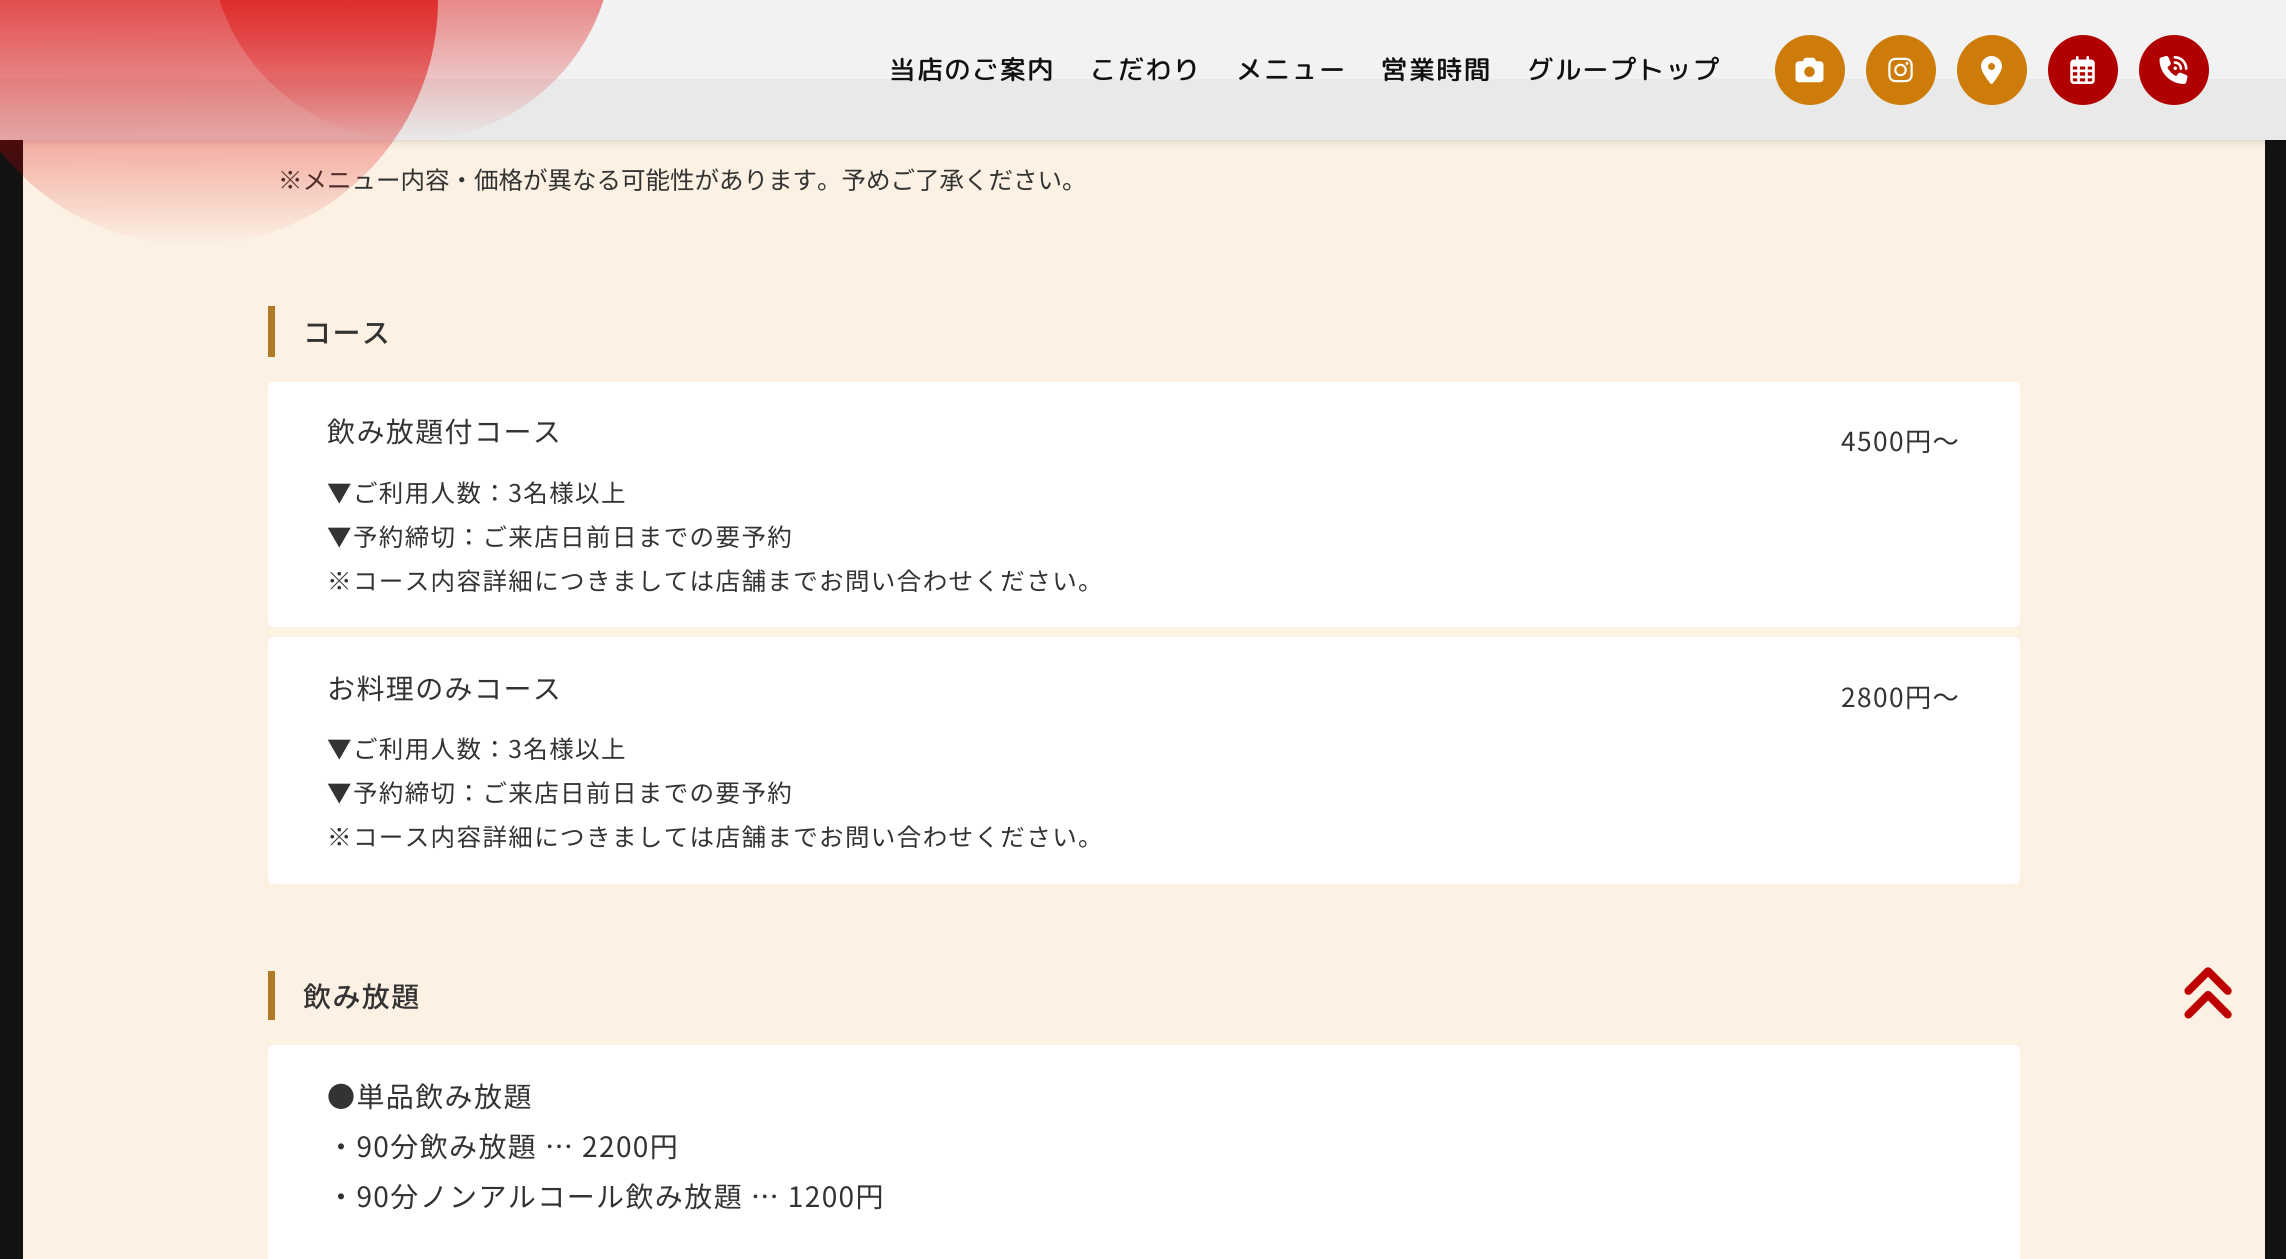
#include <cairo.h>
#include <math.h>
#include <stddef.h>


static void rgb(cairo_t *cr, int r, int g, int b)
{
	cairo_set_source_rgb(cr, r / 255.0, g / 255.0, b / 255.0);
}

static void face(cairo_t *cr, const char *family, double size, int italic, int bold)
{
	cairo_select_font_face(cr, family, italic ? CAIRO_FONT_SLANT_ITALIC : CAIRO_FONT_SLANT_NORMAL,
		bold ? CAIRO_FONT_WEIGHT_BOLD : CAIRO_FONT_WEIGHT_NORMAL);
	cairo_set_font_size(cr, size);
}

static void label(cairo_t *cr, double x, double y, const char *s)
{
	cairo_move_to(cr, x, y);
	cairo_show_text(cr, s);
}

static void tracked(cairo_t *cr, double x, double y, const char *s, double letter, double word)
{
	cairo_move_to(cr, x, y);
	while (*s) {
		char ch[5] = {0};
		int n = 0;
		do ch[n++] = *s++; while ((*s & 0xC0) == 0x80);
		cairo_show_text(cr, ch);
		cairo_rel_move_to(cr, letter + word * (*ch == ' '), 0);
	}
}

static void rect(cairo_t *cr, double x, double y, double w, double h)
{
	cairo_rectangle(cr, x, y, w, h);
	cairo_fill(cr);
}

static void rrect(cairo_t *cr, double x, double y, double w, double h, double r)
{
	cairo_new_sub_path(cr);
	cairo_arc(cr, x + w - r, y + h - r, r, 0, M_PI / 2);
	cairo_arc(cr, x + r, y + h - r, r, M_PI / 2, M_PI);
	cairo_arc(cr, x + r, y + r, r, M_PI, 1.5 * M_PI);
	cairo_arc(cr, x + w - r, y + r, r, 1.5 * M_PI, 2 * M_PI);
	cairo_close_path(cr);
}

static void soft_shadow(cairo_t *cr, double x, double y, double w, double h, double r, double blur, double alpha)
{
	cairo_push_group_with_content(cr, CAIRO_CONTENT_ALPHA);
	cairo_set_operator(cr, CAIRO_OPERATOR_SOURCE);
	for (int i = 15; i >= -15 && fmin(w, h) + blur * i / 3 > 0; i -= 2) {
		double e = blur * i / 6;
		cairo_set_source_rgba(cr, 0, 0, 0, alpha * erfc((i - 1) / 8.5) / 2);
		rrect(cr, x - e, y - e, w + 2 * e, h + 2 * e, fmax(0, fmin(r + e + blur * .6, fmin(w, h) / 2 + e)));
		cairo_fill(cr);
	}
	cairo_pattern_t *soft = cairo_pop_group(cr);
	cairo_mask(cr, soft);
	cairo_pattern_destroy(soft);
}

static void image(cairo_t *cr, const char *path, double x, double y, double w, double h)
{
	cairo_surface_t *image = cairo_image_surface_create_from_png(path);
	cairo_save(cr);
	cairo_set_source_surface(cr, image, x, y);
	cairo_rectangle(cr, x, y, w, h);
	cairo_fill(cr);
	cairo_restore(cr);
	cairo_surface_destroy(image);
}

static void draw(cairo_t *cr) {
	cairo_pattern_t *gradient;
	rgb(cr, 18, 18, 18);
	cairo_paint(cr);
	rgb(cr, 252, 241, 227);
	rect(cr, 23, 140, 2242, 1119);
	rgb(cr, 0, 0, 0);
	soft_shadow(cr, 0, 0, 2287, 140, 0, 4.5, 0.2);
	rgb(cr, 242, 242, 242);
	rect(cr, 0, 0, 2286, 79);
	rgb(cr, 233, 233, 233);
	rect(cr, 0, 79, 2286, 61);
	gradient = cairo_pattern_create_linear(411, -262, 411, 140);
	cairo_pattern_add_color_stop_rgba(gradient, 0.2, 0.859, 0, 0, 1);
	cairo_pattern_add_color_stop_rgba(gradient, 1, 0.859, 0, 0, 0);
	cairo_set_source(cr, gradient);
	cairo_pattern_destroy(gradient);
	rrect(cr, 210, -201, 403, 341, 201);
	cairo_fill(cr);
	face(cr, "Noto Sans JP", 24.5, 0, 0);
	rgb(cr, 51, 51, 51);
	label(cr, 278, 189, "※メニュー内容・価格が異なる可能性があります。予めご了承ください。");
	gradient = cairo_pattern_create_linear(192, -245, 193, 245);
	cairo_pattern_add_color_stop_rgba(gradient, 0.26, 0.859, 0, 0, 1);
	cairo_pattern_add_color_stop_rgba(gradient, 1, 0.859, 0, 0, 0);
	cairo_set_source(cr, gradient);
	cairo_pattern_destroy(gradient);
	cairo_new_path(cr);
	cairo_arc(cr, 193, 0, 245, 0, 2 * M_PI);
	cairo_fill(cr);
	face(cr, "Rounded Mplus 1c Medium", 26.25, 0, 0);
	rgb(cr, 17, 17, 17);
	tracked(cr, 889, 79, "当店のご案内", 1.4, 0);
	tracked(cr, 1090, 79, "こだわり", 1.4, 0);
	tracked(cr, 1236, 79, "メニュー", 1.4, 0);
	tracked(cr, 1381, 79, "営業時間", 1.4, 0);
	tracked(cr, 1527, 79, "グループトップ", 1.4, 0);
	rgb(cr, 205, 124, 10);
	cairo_new_path(cr);
	cairo_arc(cr, 1810, 70, 35, 0, 2 * M_PI);
	cairo_fill(cr);
	image(cr, "image0.png", 1795, 57, 29, 26);
	cairo_arc(cr, 1901, 70, 35, 0, 2 * M_PI);
	cairo_fill(cr);
	image(cr, "image1.png", 1888, 57, 25, 26);
	cairo_arc(cr, 1992, 70, 35, 0, 2 * M_PI);
	cairo_fill(cr);
	image(cr, "image2.png", 1981, 56, 21, 28);
	rgb(cr, 176, 0, 0);
	cairo_arc(cr, 2083, 70, 35, 0, 2 * M_PI);
	cairo_fill(cr);
	image(cr, "image3.png", 2070, 56, 25, 28);
	cairo_arc(cr, 2174, 70, 35, 0, 2 * M_PI);
	cairo_fill(cr);
	image(cr, "image4.png", 2159, 56, 29, 28);
	rgb(cr, 175, 121, 40);
	rect(cr, 268, 306, 7, 51);
	face(cr, "Noto Sans JP Medium", 28, 0, 0);
	rgb(cr, 51, 51, 51);
	tracked(cr, 303, 343, "コース", 1.4, 0);
	rgb(cr, 255, 255, 255);
	rrect(cr, 268, 382, 1752, 245, 5);
	cairo_fill(cr);
	face(cr, "Noto Sans JP", 28, 0, 0);
	rgb(cr, 51, 51, 51);
	tracked(cr, 327, 442, "飲み放題付コース", 1.4, 0);
	face(cr, "Noto Sans JP", 24.5, 0, 0);
	tracked(cr, 327, 502, "▼ご利用人数：3名様以上", 1.4, 0);
	tracked(cr, 327, 546, "▼予約締切：ご来店日前日までの要予約", 1.4, 0);
	tracked(cr, 327, 590, "※コース内容詳細につきましては店舗までお問い合わせください。", 1.4, 0);
	face(cr, "Noto Sans JP", 26.25, 0, 0);
	tracked(cr, 1841, 451, "4500円〜", 1.4, 0);
	rgb(cr, 255, 255, 255);
	rrect(cr, 268, 637, 1752, 247, 5);
	cairo_fill(cr);
	face(cr, "Noto Sans JP", 28, 0, 0);
	rgb(cr, 51, 51, 51);
	tracked(cr, 327, 699, "お料理のみコース", 1.4, 0);
	face(cr, "Noto Sans JP", 24.5, 0, 0);
	tracked(cr, 327, 758, "▼ご利用人数：3名様以上", 1.4, 0);
	tracked(cr, 327, 802, "▼予約締切：ご来店日前日までの要予約", 1.4, 0);
	tracked(cr, 327, 846, "※コース内容詳細につきましては店舗までお問い合わせください。", 1.4, 0);
	face(cr, "Noto Sans JP", 26.25, 0, 0);
	tracked(cr, 1841, 707, "2800円〜", 1.4, 0);
	rgb(cr, 175, 121, 40);
	rect(cr, 268, 971, 7, 49);
	face(cr, "Noto Sans JP Medium", 28, 0, 0);
	rgb(cr, 51, 51, 51);
	tracked(cr, 303, 1007, "飲み放題", 1.4, 0);
	rgb(cr, 255, 255, 255);
	rrect(cr, 268, 1045, 1752, 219, 5);
	cairo_fill(cr);
	face(cr, "Noto Sans JP", 28, 0, 0);
	rgb(cr, 51, 51, 51);
	tracked(cr, 327, 1107, "●単品飲み放題", 1.4, 0);
	tracked(cr, 327, 1157, "・90分飲み放題 … 2200円", 1.4, 0);
	tracked(cr, 327, 1207, "・90分ノンアルコール飲み放題 … 1200円", 1.4, 0);
	image(cr, "image5.png", 2184, 967, 48, 52);
}

int main(void) {
	cairo_surface_t *surface = cairo_image_surface_create(CAIRO_FORMAT_RGB24, 2286, 1259);
	cairo_t *cr = cairo_create(surface);
	cairo_font_options_t *options = cairo_font_options_create();
	cairo_font_options_set_hint_metrics(options, CAIRO_HINT_METRICS_OFF);
	cairo_font_options_set_hint_style(options, CAIRO_HINT_STYLE_NONE);
	cairo_set_font_options(cr, options);
	cairo_set_miter_limit(cr, 4);
	draw(cr);
	cairo_surface_write_to_png(surface, "render.png");
	cairo_font_options_destroy(options);
	cairo_destroy(cr);
	cairo_surface_destroy(surface);
	return 0;
}
